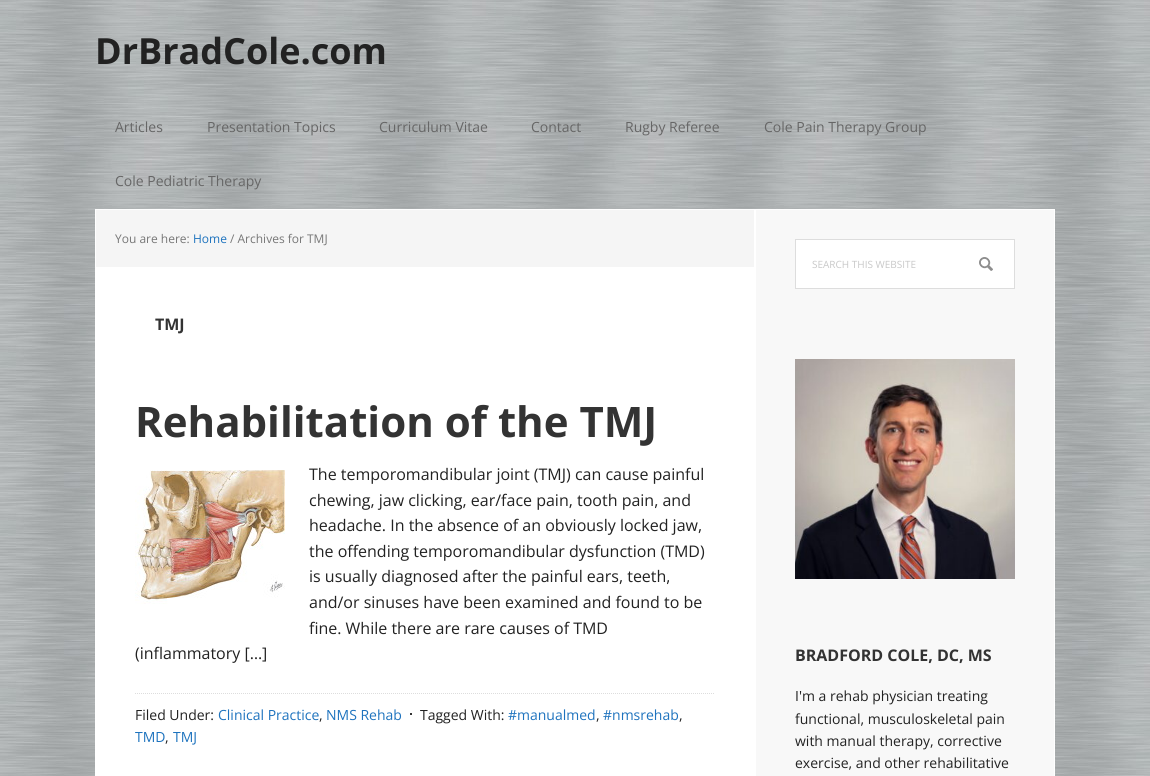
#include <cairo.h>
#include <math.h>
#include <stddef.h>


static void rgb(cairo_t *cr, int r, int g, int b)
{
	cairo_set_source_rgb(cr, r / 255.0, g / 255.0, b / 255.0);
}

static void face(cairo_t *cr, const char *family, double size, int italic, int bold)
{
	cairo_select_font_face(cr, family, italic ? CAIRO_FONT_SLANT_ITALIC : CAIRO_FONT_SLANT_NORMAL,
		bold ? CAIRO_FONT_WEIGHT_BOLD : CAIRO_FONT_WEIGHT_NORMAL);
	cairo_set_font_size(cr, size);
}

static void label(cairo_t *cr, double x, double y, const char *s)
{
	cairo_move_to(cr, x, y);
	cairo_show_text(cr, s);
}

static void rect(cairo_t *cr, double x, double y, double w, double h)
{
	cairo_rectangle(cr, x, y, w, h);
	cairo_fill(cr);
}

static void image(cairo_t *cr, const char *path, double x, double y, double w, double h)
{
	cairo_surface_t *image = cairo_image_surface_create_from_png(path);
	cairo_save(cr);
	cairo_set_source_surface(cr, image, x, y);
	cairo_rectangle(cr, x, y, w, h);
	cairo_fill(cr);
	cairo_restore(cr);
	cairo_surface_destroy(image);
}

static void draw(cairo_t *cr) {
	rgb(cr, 255, 255, 255);
	cairo_paint(cr);
	image(cr, "image0.png", 0, 0, 1150, 776);
	face(cr, "Open Sans", 36, 0, 1);
	rgb(cr, 34, 34, 34);
	label(cr, 95, 64, "DrBradCole.com");
	face(cr, "Open Sans", 14, 0, 0);
	rgb(cr, 102, 102, 102);
	label(cr, 115, 132, "Articles");
	label(cr, 207, 132, "Presentation Topics");
	label(cr, 379, 132, "Curriculum Vitae");
	label(cr, 531, 132, "Contact");
	label(cr, 625, 132, "Rugby Referee");
	label(cr, 764, 132, "Cole Pain Therapy Group");
	label(cr, 115, 186, "Cole Pediatric Therapy");
	rgb(cr, 255, 255, 255);
	rect(cr, 95, 268, 660, 508);
	rgb(cr, 245, 245, 245);
	cairo_rectangle(cr, 95.5, 209.5, 659, 58);
	cairo_fill_preserve(cr);
	rgb(cr, 255, 255, 255);
	cairo_set_line_width(cr, 1);
	cairo_stroke(cr);
	face(cr, "Open Sans", 12, 0, 0);
	rgb(cr, 119, 119, 119);
	label(cr, 115, 243, "You are here:");
	rgb(cr, 30, 115, 190);
	label(cr, 193, 243, "Home");
	rgb(cr, 119, 119, 119);
	label(cr, 230, 243, "/ Archives for TMJ");
	face(cr, "Open Sans", 16, 0, 1);
	rgb(cr, 51, 51, 51);
	label(cr, 155, 330, "TMJ");
	face(cr, "Open Sans", 42, 0, 1);
	label(cr, 135, 437, "Rehabilitation of the TMJ");
	face(cr, "Open Sans", 16, 0, 0);
	rgb(cr, 34, 34, 34);
	label(cr, 309, 480, "The temporomandibular joint (TMJ) can cause painful");
	label(cr, 309, 506, "chewing, jaw clicking, ear/face pain, tooth pain, and");
	label(cr, 309, 531, "headache. In the absence of an obviously locked jaw,");
	label(cr, 309, 557, "the offending temporomandibular dysfunction (TMD)");
	label(cr, 309, 582, "is usually diagnosed after the painful ears, teeth,");
	label(cr, 309, 608, "and/or sinuses have been examined and found to be");
	label(cr, 309, 634, "fine. While there are rare causes of TMD");
	label(cr, 135, 659, "(inflammatory […]");
	image(cr, "image1.png", 135, 470, 150, 134);
	cairo_new_path(cr);
	cairo_move_to(cr, 135, 693.5);
	cairo_line_to(cr, 715, 693.5);
	rgb(cr, 221, 221, 221);
	cairo_set_dash(cr, (double[]){1, 1}, 2, 0);
	cairo_stroke(cr);
	face(cr, "Open Sans", 14, 0, 0);
	rgb(cr, 34, 34, 34);
	label(cr, 135, 720, "Filed Under:");
	rgb(cr, 30, 115, 190);
	label(cr, 218, 720, "Clinical Practice");
	rgb(cr, 34, 34, 34);
	label(cr, 319, 720, ",");
	rgb(cr, 30, 115, 190);
	label(cr, 326, 720, "NMS Rehab");
	rgb(cr, 34, 34, 34);
	label(cr, 420, 720, "Tagged With:");
	rgb(cr, 51, 51, 51);
	rect(cr, 410, 713, 2, 2);
	rgb(cr, 30, 115, 190);
	label(cr, 508, 720, "#manualmed");
	rgb(cr, 34, 34, 34);
	label(cr, 596, 720, ",");
	rgb(cr, 30, 115, 190);
	label(cr, 603, 720, "#nmsrehab");
	rgb(cr, 34, 34, 34);
	label(cr, 679, 720, ",");
	rgb(cr, 30, 115, 190);
	label(cr, 135, 742, "TMD");
	rgb(cr, 34, 34, 34);
	label(cr, 165, 742, ",");
	rgb(cr, 30, 115, 190);
	label(cr, 173, 742, "TMJ");
	rgb(cr, 248, 248, 248);
	cairo_rectangle(cr, 755.5, 209.5, 299, 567);
	cairo_fill_preserve(cr);
	rgb(cr, 255, 255, 255);
	cairo_set_dash(cr, NULL, 0, 0);
	cairo_stroke(cr);
	rect(cr, 796, 240, 218, 48);
	image(cr, "image2.png", 979, 257, 14, 14);
	cairo_rectangle(cr, 795.5, 239.5, 219, 49);
	rgb(cr, 221, 221, 221);
	cairo_stroke(cr);
	face(cr, "Open Sans", 10, 0, 0);
	rgb(cr, 200, 200, 200);
	label(cr, 812, 268, "SEARCH THIS WEBSITE");
	image(cr, "image3.png", 795, 359, 220, 220);
	face(cr, "Open Sans", 16, 0, 1);
	rgb(cr, 51, 51, 51);
	label(cr, 795, 661, "BRADFORD COLE, DC, MS");
	face(cr, "Open Sans", 14, 0, 0);
	rgb(cr, 34, 34, 34);
	label(cr, 795, 701, "I'm a rehab physician treating");
	label(cr, 795, 724, "functional, musculoskeletal pain");
	label(cr, 795, 746, "with manual therapy, corrective");
	label(cr, 795, 768, "exercise, and other rehabilitative");
}

int main(void) {
	cairo_surface_t *surface = cairo_image_surface_create(CAIRO_FORMAT_RGB24, 1150, 776);
	cairo_t *cr = cairo_create(surface);
	cairo_font_options_t *options = cairo_font_options_create();
	cairo_font_options_set_hint_metrics(options, CAIRO_HINT_METRICS_OFF);
	cairo_font_options_set_hint_style(options, CAIRO_HINT_STYLE_NONE);
	cairo_set_font_options(cr, options);
	cairo_set_miter_limit(cr, 4);
	draw(cr);
	cairo_surface_write_to_png(surface, "render.png");
	cairo_font_options_destroy(options);
	cairo_destroy(cr);
	cairo_surface_destroy(surface);
	return 0;
}
